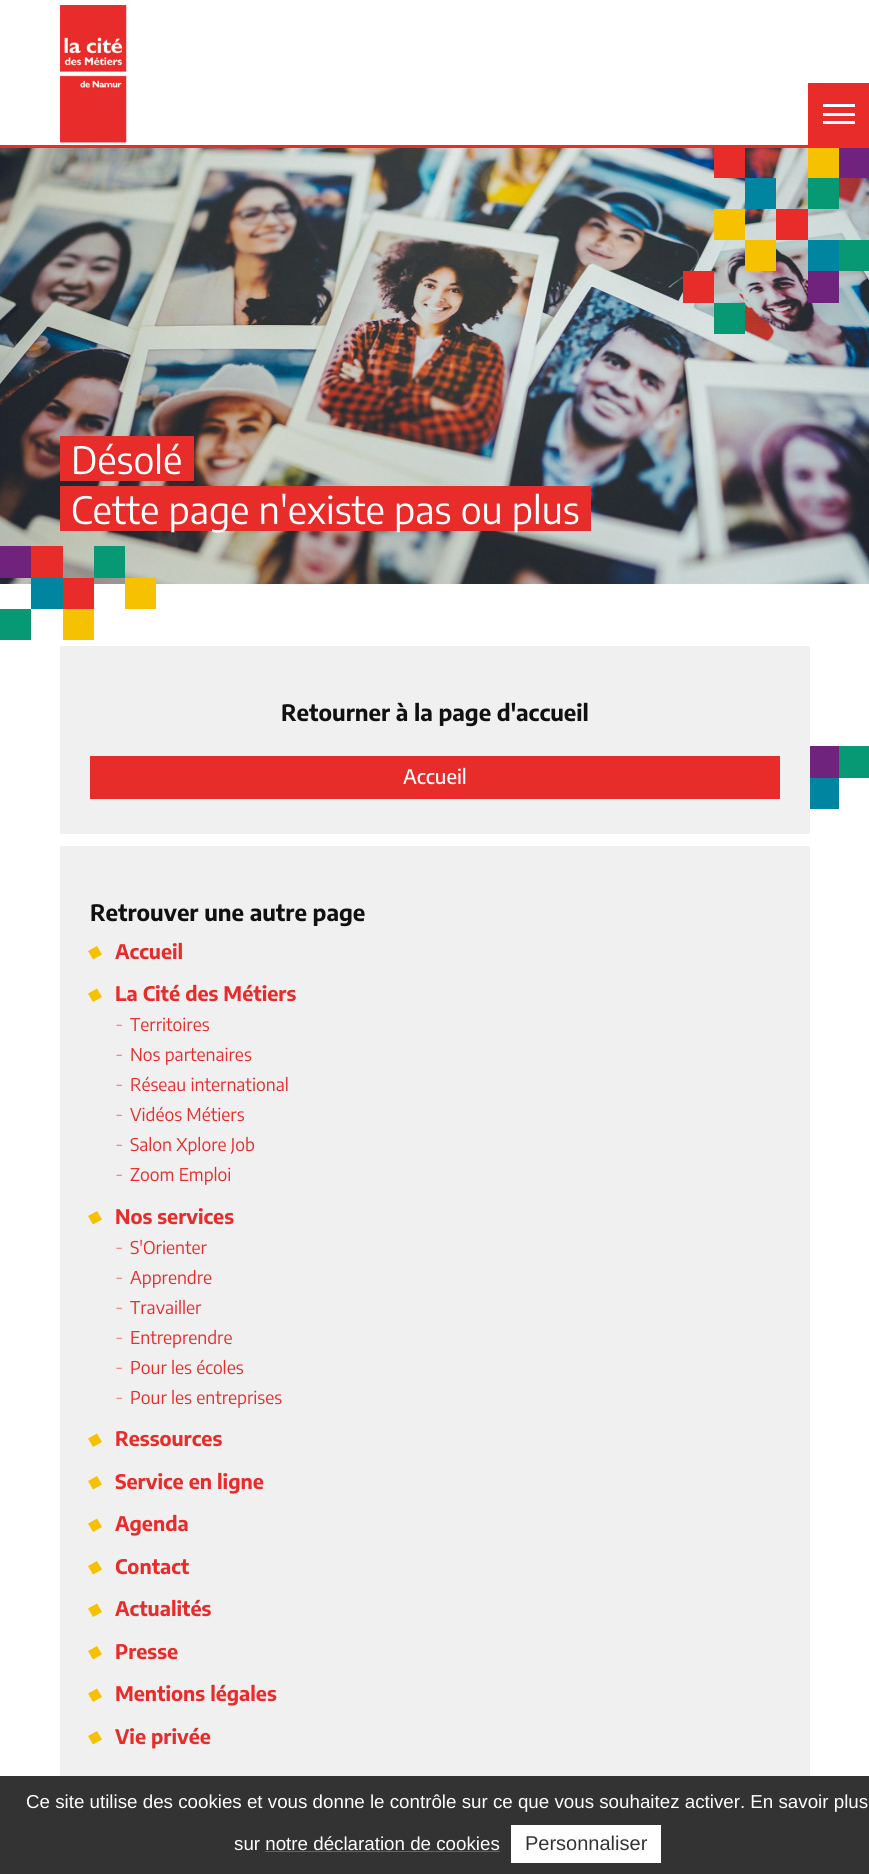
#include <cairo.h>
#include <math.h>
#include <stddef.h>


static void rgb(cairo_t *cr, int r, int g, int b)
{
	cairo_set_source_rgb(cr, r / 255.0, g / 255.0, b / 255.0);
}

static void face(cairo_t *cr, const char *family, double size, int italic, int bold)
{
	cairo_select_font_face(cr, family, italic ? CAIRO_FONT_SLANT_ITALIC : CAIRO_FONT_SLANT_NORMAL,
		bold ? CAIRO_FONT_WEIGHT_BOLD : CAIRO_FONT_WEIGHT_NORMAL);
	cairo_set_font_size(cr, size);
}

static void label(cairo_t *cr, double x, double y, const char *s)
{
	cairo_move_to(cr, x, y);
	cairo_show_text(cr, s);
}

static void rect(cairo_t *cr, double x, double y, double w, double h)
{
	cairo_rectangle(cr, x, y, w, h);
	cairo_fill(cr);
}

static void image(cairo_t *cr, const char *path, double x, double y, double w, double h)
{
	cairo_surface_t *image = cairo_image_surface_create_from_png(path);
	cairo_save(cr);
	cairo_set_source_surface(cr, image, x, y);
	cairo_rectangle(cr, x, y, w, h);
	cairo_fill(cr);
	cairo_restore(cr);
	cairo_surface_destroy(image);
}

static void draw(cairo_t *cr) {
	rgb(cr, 255, 255, 255);
	cairo_paint(cr);
	image(cr, "image0.png", 60, 5, 67, 138);
	rgb(cr, 232, 44, 42);
	rect(cr, 0, 145, 869, 3);
	rect(cr, 808, 83, 61, 62);
	rgb(cr, 255, 255, 255);
	rect(cr, 823, 104, 32, 3);
	rect(cr, 823, 113, 32, 3);
	rect(cr, 823, 121, 32, 3);
	image(cr, "image1.png", 0, 148, 869, 436);
	rgb(cr, 232, 44, 42);
	rect(cr, 714, 148, 31, 30);
	rgb(cr, 246, 193, 0);
	rect(cr, 808, 148, 31, 30);
	rgb(cr, 111, 35, 125);
	rect(cr, 839, 148, 30, 30);
	rgb(cr, 0, 133, 160);
	rect(cr, 745, 178, 31, 31);
	rgb(cr, 6, 153, 116);
	rect(cr, 808, 178, 31, 31);
	rgb(cr, 246, 193, 0);
	rect(cr, 714, 209, 31, 31);
	rgb(cr, 232, 44, 42);
	rect(cr, 776, 209, 32, 31);
	rgb(cr, 246, 193, 0);
	rect(cr, 745, 240, 31, 31);
	rgb(cr, 0, 133, 160);
	rect(cr, 808, 240, 31, 31);
	rgb(cr, 6, 153, 116);
	rect(cr, 839, 240, 30, 31);
	rgb(cr, 232, 44, 42);
	rect(cr, 683, 271, 31, 32);
	rgb(cr, 111, 35, 125);
	rect(cr, 808, 271, 31, 32);
	rgb(cr, 6, 153, 116);
	rect(cr, 714, 303, 31, 31);
	rgb(cr, 232, 44, 42);
	rect(cr, 60, 436, 134, 45);
	face(cr, "Encode Sans", 37.5, 0, 0);
	rgb(cr, 255, 255, 255);
	label(cr, 71, 474, "Désolé");
	rgb(cr, 232, 44, 42);
	rect(cr, 60, 486, 531, 45);
	rgb(cr, 255, 255, 255);
	label(cr, 71, 524, "Cette page n'existe pas ou plus");
	rgb(cr, 111, 35, 125);
	rect(cr, 0, 546, 31, 32);
	rgb(cr, 232, 44, 42);
	rect(cr, 31, 546, 32, 32);
	rgb(cr, 6, 153, 116);
	rect(cr, 94, 546, 31, 32);
	rgb(cr, 0, 133, 160);
	rect(cr, 31, 578, 32, 31);
	rgb(cr, 232, 44, 42);
	rect(cr, 63, 578, 31, 31);
	rgb(cr, 246, 193, 0);
	rect(cr, 125, 578, 31, 31);
	rgb(cr, 6, 153, 116);
	rect(cr, 0, 609, 31, 31);
	rgb(cr, 246, 193, 0);
	rect(cr, 63, 609, 31, 31);
	rgb(cr, 111, 35, 125);
	rect(cr, 810, 746, 29, 32);
	rgb(cr, 6, 153, 116);
	rect(cr, 839, 746, 30, 32);
	rgb(cr, 0, 133, 160);
	rect(cr, 810, 778, 29, 31);
	rgb(cr, 240, 240, 240);
	rect(cr, 60, 646, 750, 188);
	face(cr, "Encode Sans", 22.5, 0, 1);
	rgb(cr, 17, 17, 17);
	label(cr, 281, 721, "Retourner à la page d'accueil");
	rgb(cr, 232, 44, 42);
	rect(cr, 90, 756, 690, 43);
	face(cr, "Encode Sans Medium", 20, 0, 0);
	rgb(cr, 255, 255, 255);
	label(cr, 403, 784, "Accueil");
	rgb(cr, 240, 240, 240);
	rect(cr, 60, 846, 750, 930);
	face(cr, "Encode Sans", 22.5, 0, 1);
	rgb(cr, 17, 17, 17);
	label(cr, 90, 921, "Retrouver une autre page");
	rgb(cr, 246, 193, 0);
	cairo_new_path(cr);
	cairo_move_to(cr, 88, 951);
	cairo_line_to(cr, 97, 946);
	cairo_line_to(cr, 102, 954.5);
	cairo_line_to(cr, 93, 959.5);
	cairo_close_path(cr);
	cairo_fill(cr);
	face(cr, "Encode Sans", 20, 0, 1);
	rgb(cr, 232, 44, 42);
	label(cr, 115, 959, "Accueil");
	rgb(cr, 246, 193, 0);
	cairo_new_path(cr);
	cairo_move_to(cr, 88, 993.5);
	cairo_line_to(cr, 97, 988.5);
	cairo_line_to(cr, 102, 997);
	cairo_line_to(cr, 93, 1002);
	cairo_close_path(cr);
	cairo_fill(cr);
	rgb(cr, 232, 44, 42);
	label(cr, 115, 1001, "La Cité des Métiers");
	face(cr, "Encode Sans", 20, 0, 0);
	rgb(cr, 236, 142, 141);
	label(cr, 115, 1031, "-");
	face(cr, "Encode Sans", 17.5, 0, 0);
	rgb(cr, 232, 44, 42);
	label(cr, 130, 1031, "Territoires");
	face(cr, "Encode Sans", 20, 0, 0);
	rgb(cr, 236, 142, 141);
	label(cr, 115, 1061, "-");
	face(cr, "Encode Sans", 17.5, 0, 0);
	rgb(cr, 232, 44, 42);
	label(cr, 130, 1061, "Nos partenaires");
	face(cr, "Encode Sans", 20, 0, 0);
	rgb(cr, 236, 142, 141);
	label(cr, 115, 1091, "-");
	face(cr, "Encode Sans", 17.5, 0, 0);
	rgb(cr, 232, 44, 42);
	label(cr, 130, 1091, "Réseau international");
	face(cr, "Encode Sans", 20, 0, 0);
	rgb(cr, 236, 142, 141);
	label(cr, 115, 1121, "-");
	face(cr, "Encode Sans", 17.5, 0, 0);
	rgb(cr, 232, 44, 42);
	label(cr, 130, 1121, "Vidéos Métiers");
	face(cr, "Encode Sans", 20, 0, 0);
	rgb(cr, 236, 142, 141);
	label(cr, 115, 1151, "-");
	face(cr, "Encode Sans", 17.5, 0, 0);
	rgb(cr, 232, 44, 42);
	label(cr, 130, 1151, "Salon Xplore Job");
	face(cr, "Encode Sans", 20, 0, 0);
	rgb(cr, 236, 142, 141);
	label(cr, 115, 1181, "-");
	face(cr, "Encode Sans", 17.5, 0, 0);
	rgb(cr, 232, 44, 42);
	label(cr, 130, 1181, "Zoom Emploi");
	rgb(cr, 246, 193, 0);
	cairo_new_path(cr);
	cairo_move_to(cr, 88, 1216);
	cairo_line_to(cr, 97, 1211);
	cairo_line_to(cr, 102, 1219.5);
	cairo_line_to(cr, 93, 1224.5);
	cairo_close_path(cr);
	cairo_fill(cr);
	face(cr, "Encode Sans", 20, 0, 1);
	rgb(cr, 232, 44, 42);
	label(cr, 115, 1224, "Nos services");
	face(cr, "Encode Sans", 20, 0, 0);
	rgb(cr, 236, 142, 141);
	label(cr, 115, 1254, "-");
	face(cr, "Encode Sans", 17.5, 0, 0);
	rgb(cr, 232, 44, 42);
	label(cr, 130, 1254, "S'Orienter");
	face(cr, "Encode Sans", 20, 0, 0);
	rgb(cr, 236, 142, 141);
	label(cr, 115, 1284, "-");
	face(cr, "Encode Sans", 17.5, 0, 0);
	rgb(cr, 232, 44, 42);
	label(cr, 130, 1284, "Apprendre");
	face(cr, "Encode Sans", 20, 0, 0);
	rgb(cr, 236, 142, 141);
	label(cr, 115, 1314, "-");
	face(cr, "Encode Sans", 17.5, 0, 0);
	rgb(cr, 232, 44, 42);
	label(cr, 130, 1314, "Travailler");
	face(cr, "Encode Sans", 20, 0, 0);
	rgb(cr, 236, 142, 141);
	label(cr, 115, 1344, "-");
	face(cr, "Encode Sans", 17.5, 0, 0);
	rgb(cr, 232, 44, 42);
	label(cr, 130, 1344, "Entreprendre");
	face(cr, "Encode Sans", 20, 0, 0);
	rgb(cr, 236, 142, 141);
	label(cr, 115, 1374, "-");
	face(cr, "Encode Sans", 17.5, 0, 0);
	rgb(cr, 232, 44, 42);
	label(cr, 130, 1374, "Pour les écoles");
	face(cr, "Encode Sans", 20, 0, 0);
	rgb(cr, 236, 142, 141);
	label(cr, 115, 1404, "-");
	face(cr, "Encode Sans", 17.5, 0, 0);
	rgb(cr, 232, 44, 42);
	label(cr, 130, 1404, "Pour les entreprises");
	rgb(cr, 246, 193, 0);
	cairo_new_path(cr);
	cairo_move_to(cr, 88, 1438.5);
	cairo_line_to(cr, 97, 1433.5);
	cairo_line_to(cr, 102, 1442);
	cairo_line_to(cr, 93, 1447);
	cairo_close_path(cr);
	cairo_fill(cr);
	face(cr, "Encode Sans", 20, 0, 1);
	rgb(cr, 232, 44, 42);
	label(cr, 115, 1446, "Ressources");
	rgb(cr, 246, 193, 0);
	cairo_new_path(cr);
	cairo_move_to(cr, 88, 1481);
	cairo_line_to(cr, 97, 1476);
	cairo_line_to(cr, 102, 1484.5);
	cairo_line_to(cr, 93, 1489.5);
	cairo_close_path(cr);
	cairo_fill(cr);
	rgb(cr, 232, 44, 42);
	label(cr, 115, 1489, "Service en ligne");
	rgb(cr, 246, 193, 0);
	cairo_new_path(cr);
	cairo_move_to(cr, 88, 1523.5);
	cairo_line_to(cr, 97, 1518.5);
	cairo_line_to(cr, 102, 1527);
	cairo_line_to(cr, 93, 1532);
	cairo_close_path(cr);
	cairo_fill(cr);
	rgb(cr, 232, 44, 42);
	label(cr, 115, 1531, "Agenda");
	rgb(cr, 246, 193, 0);
	cairo_new_path(cr);
	cairo_move_to(cr, 88, 1566);
	cairo_line_to(cr, 97, 1561);
	cairo_line_to(cr, 102, 1569.5);
	cairo_line_to(cr, 93, 1574.5);
	cairo_close_path(cr);
	cairo_fill(cr);
	rgb(cr, 232, 44, 42);
	label(cr, 115, 1574, "Contact");
	rgb(cr, 246, 193, 0);
	cairo_new_path(cr);
	cairo_move_to(cr, 88, 1608.5);
	cairo_line_to(cr, 97, 1603.5);
	cairo_line_to(cr, 102, 1612);
	cairo_line_to(cr, 93, 1617);
	cairo_close_path(cr);
	cairo_fill(cr);
	rgb(cr, 232, 44, 42);
	label(cr, 115, 1616, "Actualités");
	rgb(cr, 246, 193, 0);
	cairo_new_path(cr);
	cairo_move_to(cr, 88, 1651);
	cairo_line_to(cr, 97, 1646);
	cairo_line_to(cr, 102, 1654.5);
	cairo_line_to(cr, 93, 1659.5);
	cairo_close_path(cr);
	cairo_fill(cr);
	rgb(cr, 232, 44, 42);
	label(cr, 115, 1659, "Presse");
	rgb(cr, 246, 193, 0);
	cairo_new_path(cr);
	cairo_move_to(cr, 88, 1693.5);
	cairo_line_to(cr, 97, 1688.5);
	cairo_line_to(cr, 102, 1697);
	cairo_line_to(cr, 93, 1702);
	cairo_close_path(cr);
	cairo_fill(cr);
	rgb(cr, 232, 44, 42);
	label(cr, 115, 1701, "Mentions légales");
	rgb(cr, 246, 193, 0);
	cairo_new_path(cr);
	cairo_move_to(cr, 88, 1736);
	cairo_line_to(cr, 97, 1731);
	cairo_line_to(cr, 102, 1739.5);
	cairo_line_to(cr, 93, 1744.5);
	cairo_close_path(cr);
	cairo_fill(cr);
	rgb(cr, 232, 44, 42);
	label(cr, 115, 1744, "Vie privée");
	rgb(cr, 51, 51, 51);
	rect(cr, 0, 1776, 869, 98);
	face(cr, "Liberation Sans", 18.75, 0, 0);
	rgb(cr, 255, 255, 255);
	label(cr, 26, 1808, "Ce site utilise des cookies et vous donne le contrôle sur ce que vous souhaitez activer. En savoir plus");
	label(cr, 234, 1850, "sur notre déclaration de cookies");
	rgb(cr, 232, 44, 42);
	rect(cr, 265, 1851, 235, 1);
	rgb(cr, 255, 255, 255);
	rect(cr, 511, 1825, 150, 38);
	face(cr, "Liberation Sans", 20, 0, 0);
	rgb(cr, 51, 51, 51);
	label(cr, 525, 1850, "Personnaliser");
}

int main(void) {
	cairo_surface_t *surface = cairo_image_surface_create(CAIRO_FORMAT_RGB24, 869, 1874);
	cairo_t *cr = cairo_create(surface);
	cairo_font_options_t *options = cairo_font_options_create();
	cairo_font_options_set_hint_metrics(options, CAIRO_HINT_METRICS_OFF);
	cairo_font_options_set_hint_style(options, CAIRO_HINT_STYLE_NONE);
	cairo_set_font_options(cr, options);
	cairo_set_miter_limit(cr, 4);
	draw(cr);
	cairo_surface_write_to_png(surface, "render.png");
	cairo_font_options_destroy(options);
	cairo_destroy(cr);
	cairo_surface_destroy(surface);
	return 0;
}
